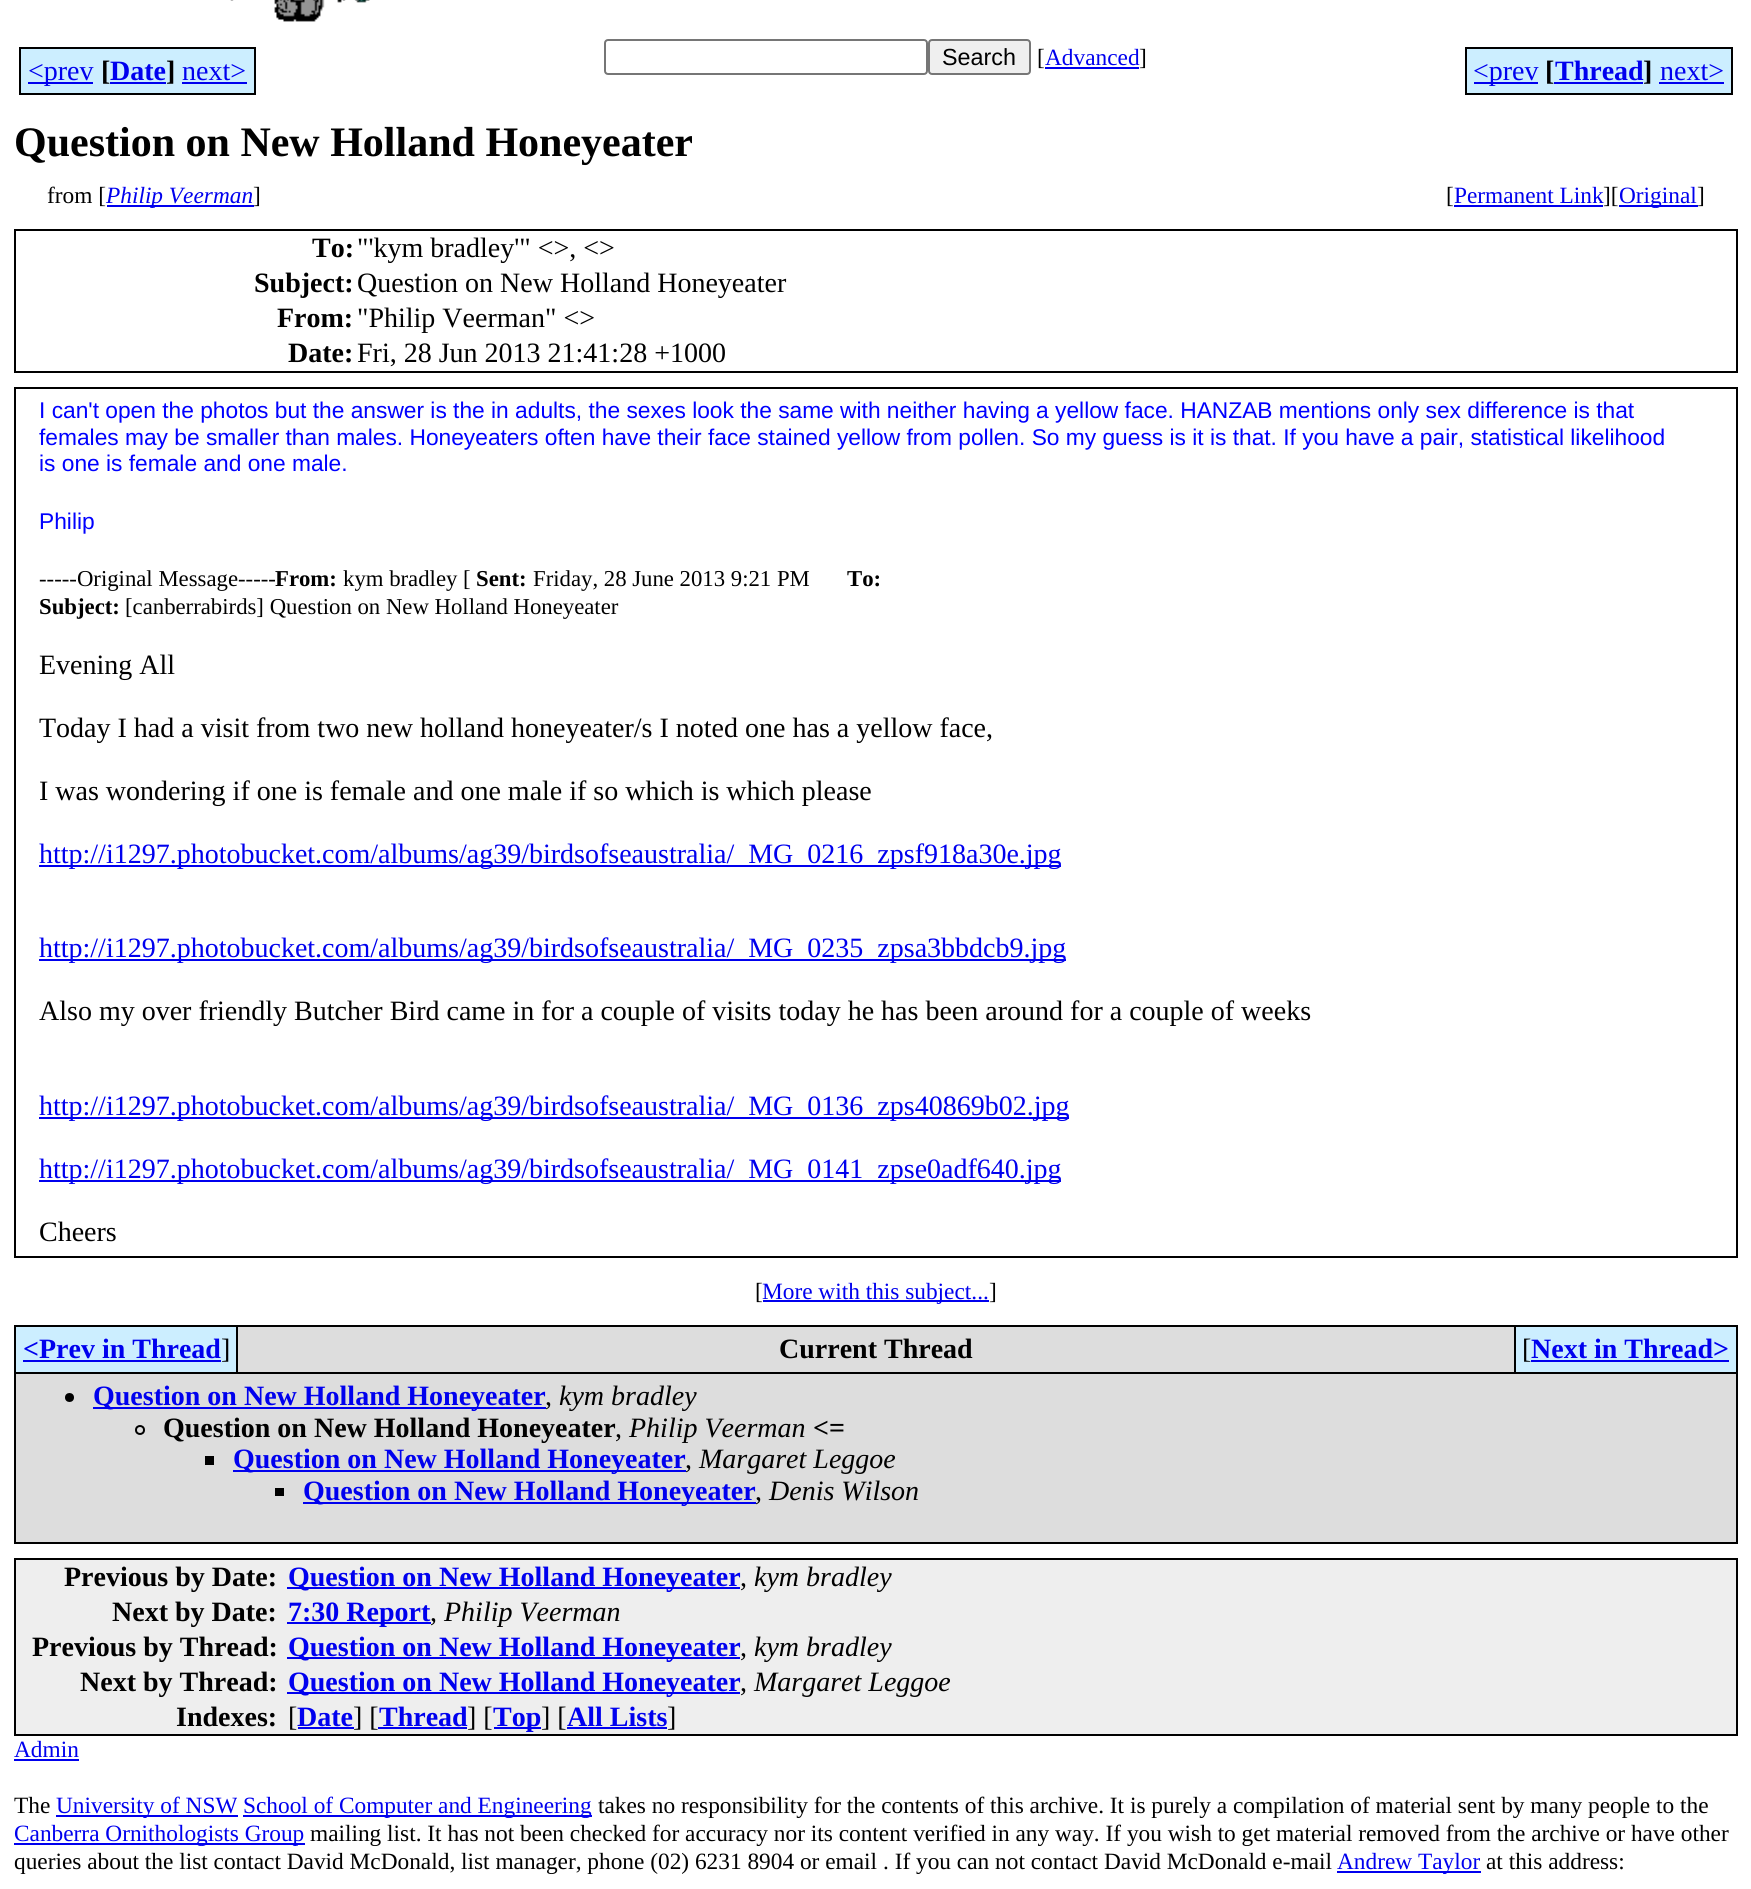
#include <cairo.h>
#include <math.h>
#include <stddef.h>


static void rgb(cairo_t *cr, int r, int g, int b)
{
	cairo_set_source_rgb(cr, r / 255.0, g / 255.0, b / 255.0);
}

static void face(cairo_t *cr, const char *family, double size, int italic, int bold)
{
	cairo_select_font_face(cr, family, italic ? CAIRO_FONT_SLANT_ITALIC : CAIRO_FONT_SLANT_NORMAL,
		bold ? CAIRO_FONT_WEIGHT_BOLD : CAIRO_FONT_WEIGHT_NORMAL);
	cairo_set_font_size(cr, size);
}

static void label(cairo_t *cr, double x, double y, const char *s)
{
	cairo_move_to(cr, x, y);
	cairo_show_text(cr, s);
}

static void rect(cairo_t *cr, double x, double y, double w, double h)
{
	cairo_rectangle(cr, x, y, w, h);
	cairo_fill(cr);
}

static void rrect(cairo_t *cr, double x, double y, double w, double h, double r)
{
	cairo_new_sub_path(cr);
	cairo_arc(cr, x + w - r, y + h - r, r, 0, M_PI / 2);
	cairo_arc(cr, x + r, y + h - r, r, M_PI / 2, M_PI);
	cairo_arc(cr, x + r, y + r, r, M_PI, 1.5 * M_PI);
	cairo_arc(cr, x + w - r, y + r, r, 1.5 * M_PI, 2 * M_PI);
	cairo_close_path(cr);
}

static void image(cairo_t *cr, const char *path, double x, double y, double w, double h)
{
	cairo_surface_t *image = cairo_image_surface_create_from_png(path);
	cairo_save(cr);
	cairo_set_source_surface(cr, image, x, y);
	cairo_rectangle(cr, x, y, w, h);
	cairo_fill(cr);
	cairo_restore(cr);
	cairo_surface_destroy(image);
}

static void draw(cairo_t *cr) {
	rgb(cr, 255, 255, 255);
	cairo_paint(cr);
	image(cr, "image0.png", 230, 0, 140, 22);
	rgb(cr, 204, 238, 255);
	rect(cr, 21, 49, 72, 44);
	rgb(cr, 0, 0, 238);
	rect(cr, 28, 82, 65, 2);
	rgb(cr, 204, 238, 255);
	rect(cr, 93, 47, 7, 48);
	face(cr, "Liberation Serif", 28, 0, 0);
	rgb(cr, 0, 0, 238);
	label(cr, 28, 80, "<prev");
	rgb(cr, 0, 0, 0);
	rect(cr, 19, 47, 74, 2);
	rect(cr, 19, 93, 74, 2);
	rect(cr, 19, 47, 2, 48);
	rect(cr, 93, 93, 82, 2);
	rgb(cr, 204, 238, 255);
	rect(cr, 100, 49, 75, 44);
	face(cr, "Liberation Serif", 28, 0, 1);
	rgb(cr, 0, 0, 0);
	label(cr, 101, 80, "[");
	rgb(cr, 0, 0, 238);
	label(cr, 110, 80, "Date");
	rgb(cr, 0, 0, 0);
	rect(cr, 93, 47, 82, 2);
	label(cr, 166, 80, "]");
	rgb(cr, 0, 0, 238);
	rect(cr, 110, 82, 56, 2);
	rgb(cr, 204, 238, 255);
	rect(cr, 182, 49, 72, 44);
	face(cr, "Liberation Serif", 28, 0, 0);
	rgb(cr, 0, 0, 238);
	label(cr, 182, 80, "next>");
	rgb(cr, 204, 238, 255);
	rect(cr, 175, 47, 7, 48);
	rgb(cr, 0, 0, 0);
	rect(cr, 175, 47, 81, 2);
	rect(cr, 175, 93, 7, 2);
	rect(cr, 254, 47, 2, 48);
	rect(cr, 182, 93, 74, 2);
	rgb(cr, 0, 0, 238);
	rect(cr, 182, 82, 65, 2);
	rrect(cr, 605, 40, 322, 34, 3);
	rgb(cr, 118, 118, 118);
	cairo_stroke(cr);
	rgb(cr, 239, 239, 239);
	rrect(cr, 929, 40, 101, 34, 3);
	cairo_fill_preserve(cr);
	rgb(cr, 118, 118, 118);
	cairo_stroke(cr);
	face(cr, "Liberation Sans", 23.33, 0, 0);
	rgb(cr, 0, 0, 0);
	label(cr, 942, 65, "Search");
	face(cr, "Liberation Serif", 23.33, 0, 0);
	label(cr, 1037, 65, "[");
	rgb(cr, 0, 0, 238);
	rect(cr, 1045, 67, 94, 2);
	label(cr, 1045, 65, "Advanced");
	rgb(cr, 0, 0, 0);
	label(cr, 1139, 65, "]");
	rgb(cr, 204, 238, 255);
	rect(cr, 1467, 49, 71, 44);
	rgb(cr, 0, 0, 238);
	rect(cr, 1474, 82, 64, 2);
	rgb(cr, 204, 238, 255);
	rect(cr, 1538, 47, 7, 48);
	face(cr, "Liberation Serif", 28, 0, 0);
	rgb(cr, 0, 0, 238);
	label(cr, 1473, 80, "<prev");
	rgb(cr, 0, 0, 0);
	rect(cr, 1465, 47, 73, 2);
	rect(cr, 1465, 93, 73, 2);
	rect(cr, 1465, 47, 2, 48);
	rect(cr, 1538, 93, 114, 2);
	rgb(cr, 204, 238, 255);
	rect(cr, 1545, 49, 107, 44);
	face(cr, "Liberation Serif", 28, 0, 1);
	rgb(cr, 0, 0, 0);
	label(cr, 1545, 80, "[");
	rgb(cr, 0, 0, 238);
	rect(cr, 1554, 82, 89, 2);
	label(cr, 1555, 80, "Thread");
	rgb(cr, 0, 0, 0);
	rect(cr, 1538, 47, 114, 2);
	label(cr, 1643, 80, "]");
	rgb(cr, 204, 238, 255);
	rect(cr, 1652, 47, 7, 48);
	rgb(cr, 0, 0, 0);
	rect(cr, 1652, 93, 7, 2);
	rgb(cr, 204, 238, 255);
	rect(cr, 1659, 49, 72, 44);
	face(cr, "Liberation Serif", 28, 0, 0);
	rgb(cr, 0, 0, 238);
	label(cr, 1660, 80, "next>");
	rgb(cr, 0, 0, 0);
	rect(cr, 1652, 47, 81, 2);
	rect(cr, 1731, 47, 2, 48);
	rect(cr, 1659, 93, 74, 2);
	rgb(cr, 0, 0, 238);
	rect(cr, 1659, 82, 65, 2);
	face(cr, "Liberation Serif", 42, 0, 1);
	rgb(cr, 0, 0, 0);
	label(cr, 14, 156, "Question on New Holland Honeyeater");
	face(cr, "Liberation Serif", 23.33, 0, 0);
	label(cr, 47, 203, "from [");
	rgb(cr, 0, 0, 238);
	rect(cr, 107, 205, 147, 2);
	face(cr, "Liberation Serif", 23.33, 1, 0);
	label(cr, 106, 203, "Philip Veerman");
	face(cr, "Liberation Serif", 23.33, 0, 0);
	rgb(cr, 0, 0, 0);
	label(cr, 253, 203, "]");
	label(cr, 1446, 203, "[");
	rgb(cr, 0, 0, 238);
	rect(cr, 1454, 205, 149, 2);
	label(cr, 1454, 203, "Permanent Link");
	rgb(cr, 0, 0, 0);
	label(cr, 1603, 203, "][");
	rgb(cr, 0, 0, 238);
	rect(cr, 1619, 205, 79, 2);
	label(cr, 1619, 203, "Original");
	rgb(cr, 0, 0, 0);
	label(cr, 1697, 203, "]");
	cairo_rectangle(cr, 15, 230, 1722, 142);
	cairo_stroke(cr);
	face(cr, "Liberation Serif", 28, 0, 1);
	label(cr, 312, 257, "To:");
	face(cr, "Liberation Serif", 28, 0, 0);
	label(cr, 357, 257, "\"'kym bradley'\" <>, <>");
	face(cr, "Liberation Serif", 28, 0, 1);
	label(cr, 254, 292, "Subject:");
	face(cr, "Liberation Serif", 28, 0, 0);
	label(cr, 357, 292, "Question on New Holland Honeyeater");
	face(cr, "Liberation Serif", 28, 0, 1);
	label(cr, 277, 327, "From:");
	face(cr, "Liberation Serif", 28, 0, 0);
	label(cr, 357, 327, "\"Philip Veerman\" <>");
	face(cr, "Liberation Serif", 28, 0, 1);
	label(cr, 288, 362, "Date:");
	face(cr, "Liberation Serif", 28, 0, 0);
	label(cr, 357, 362, "Fri, 28 Jun 2013 21:41:28 +1000");
	cairo_rectangle(cr, 15, 388, 1722, 869);
	cairo_stroke(cr);
	face(cr, "Liberation Sans", 22.75, 0, 0);
	rgb(cr, 0, 0, 255);
	label(cr, 39, 418, "I can't open the photos but the answer is the in adults, the sexes look the same with neither having a yellow face. HANZAB mentions only sex difference is that");
	label(cr, 39, 445, "females may be smaller than males. Honeyeaters often have their face stained yellow from pollen. So my guess is it is that. If you have a pair, statistical likelihood");
	label(cr, 39, 471, "is one is female and one male.");
	label(cr, 39, 529, "Philip");
	face(cr, "Liberation Serif", 22.75, 0, 0);
	rgb(cr, 0, 0, 0);
	label(cr, 39, 586, "-----Original Message-----");
	face(cr, "Liberation Serif", 22.75, 0, 1);
	label(cr, 275, 586, "From:");
	face(cr, "Liberation Serif", 22.75, 0, 0);
	label(cr, 343, 586, "kym bradley [");
	face(cr, "Liberation Serif", 22.75, 0, 1);
	label(cr, 476, 586, "Sent:");
	face(cr, "Liberation Serif", 22.75, 0, 0);
	label(cr, 533, 586, "Friday, 28 June 2013 9:21 PM");
	face(cr, "Liberation Serif", 22.75, 0, 1);
	label(cr, 847, 586, "To:");
	label(cr, 39, 614, "Subject:");
	face(cr, "Liberation Serif", 22.75, 0, 0);
	label(cr, 125, 614, "[canberrabirds] Question on New Holland Honeyeater");
	face(cr, "Liberation Serif", 28, 0, 0);
	label(cr, 39, 674, "Evening All");
	label(cr, 39, 737, "Today I had a visit from two new holland honeyeater/s I noted one has a yellow face,");
	label(cr, 39, 800, "I was wondering if one is female and one male if so which is which please");
	rgb(cr, 0, 0, 238);
	rect(cr, 39, 865, 1022, 2);
	label(cr, 39, 863, "http://i1297.photobucket.com/albums/ag39/birdsofseaustralia/_MG_0216_zpsf918a30e.jpg");
	rect(cr, 39, 959, 1027, 2);
	label(cr, 39, 957, "http://i1297.photobucket.com/albums/ag39/birdsofseaustralia/_MG_0235_zpsa3bbdcb9.jpg");
	rgb(cr, 0, 0, 0);
	label(cr, 39, 1020, "Also my over friendly Butcher Bird came in for a couple of visits today he has been around for a couple of weeks");
	rgb(cr, 0, 0, 238);
	rect(cr, 39, 1117, 1030, 2);
	label(cr, 39, 1115, "http://i1297.photobucket.com/albums/ag39/birdsofseaustralia/_MG_0136_zps40869b02.jpg");
	rect(cr, 39, 1180, 1022, 2);
	label(cr, 39, 1178, "http://i1297.photobucket.com/albums/ag39/birdsofseaustralia/_MG_0141_zpse0adf640.jpg");
	rgb(cr, 0, 0, 0);
	label(cr, 39, 1241, "Cheers");
	face(cr, "Liberation Serif", 23.33, 0, 0);
	label(cr, 755, 1299, "[");
	rgb(cr, 0, 0, 238);
	rect(cr, 763, 1300, 226, 2);
	label(cr, 762, 1299, "More with this subject...");
	rgb(cr, 0, 0, 0);
	label(cr, 989, 1299, "]");
	rect(cr, 14, 1325, 1724, 219);
	rgb(cr, 204, 238, 255);
	rect(cr, 16, 1327, 220, 45);
	face(cr, "Liberation Serif", 28, 0, 1);
	rgb(cr, 0, 0, 238);
	label(cr, 23, 1358, "<Prev in Thread");
	rect(cr, 23, 1360, 198, 2);
	face(cr, "Liberation Serif", 28, 0, 0);
	rgb(cr, 0, 0, 0);
	label(cr, 221, 1358, "]");
	rgb(cr, 221, 221, 221);
	rect(cr, 238, 1327, 1276, 45);
	face(cr, "Liberation Serif", 28, 0, 1);
	rgb(cr, 0, 0, 0);
	label(cr, 779, 1358, "Current Thread");
	rgb(cr, 204, 238, 255);
	rect(cr, 1516, 1327, 220, 45);
	face(cr, "Liberation Serif", 28, 0, 0);
	rgb(cr, 0, 0, 0);
	label(cr, 1522, 1358, "[");
	face(cr, "Liberation Serif", 28, 0, 1);
	rgb(cr, 0, 0, 238);
	label(cr, 1531, 1358, "Next in Thread>");
	rect(cr, 1531, 1360, 198, 2);
	rgb(cr, 221, 221, 221);
	rect(cr, 16, 1374, 1720, 168);
	rgb(cr, 0, 0, 0);
	cairo_new_path(cr);
	cairo_arc(cr, 69.5, 1397.5, 4.5, 0, 2 * M_PI);
	cairo_fill(cr);
	rgb(cr, 0, 0, 238);
	rect(cr, 93, 1407, 453, 2);
	label(cr, 93, 1405, "Question on New Holland Honeyeater");
	face(cr, "Liberation Serif", 28, 1, 0);
	rgb(cr, 0, 0, 0);
	label(cr, 559, 1405, "kym bradley");
	face(cr, "Liberation Serif", 28, 0, 0);
	label(cr, 545, 1405, ",");
	cairo_new_path(cr);
	cairo_arc(cr, 140, 1430, 4, 0, 2 * M_PI);
	cairo_stroke(cr);
	face(cr, "Liberation Serif", 28, 0, 1);
	label(cr, 163, 1437, "Question on New Holland Honeyeater");
	face(cr, "Liberation Serif", 28, 1, 0);
	label(cr, 629, 1437, "Philip Veerman");
	face(cr, "Liberation Serif", 28, 0, 1);
	label(cr, 813, 1437, "<=");
	face(cr, "Liberation Serif", 28, 0, 0);
	label(cr, 615, 1437, ",");
	rect(cr, 205, 1456, 9, 9);
	rgb(cr, 0, 0, 238);
	rect(cr, 233, 1470, 453, 2);
	face(cr, "Liberation Serif", 28, 0, 1);
	label(cr, 233, 1468, "Question on New Holland Honeyeater");
	face(cr, "Liberation Serif", 28, 1, 0);
	rgb(cr, 0, 0, 0);
	label(cr, 699, 1468, "Margaret Leggoe");
	face(cr, "Liberation Serif", 28, 0, 0);
	label(cr, 685, 1468, ",");
	rect(cr, 275, 1488, 9, 8);
	rgb(cr, 0, 0, 238);
	rect(cr, 303, 1502, 453, 2);
	face(cr, "Liberation Serif", 28, 0, 1);
	label(cr, 303, 1500, "Question on New Holland Honeyeater");
	face(cr, "Liberation Serif", 28, 1, 0);
	rgb(cr, 0, 0, 0);
	label(cr, 769, 1500, "Denis Wilson");
	face(cr, "Liberation Serif", 28, 0, 0);
	label(cr, 755, 1500, ",");
	rgb(cr, 238, 238, 238);
	cairo_rectangle(cr, 15, 1559, 1722, 176);
	cairo_fill_preserve(cr);
	rgb(cr, 0, 0, 0);
	cairo_stroke(cr);
	face(cr, "Liberation Serif", 28, 0, 1);
	label(cr, 64, 1586, "Previous by Date:");
	rgb(cr, 0, 0, 238);
	rect(cr, 287, 1587, 453, 2);
	label(cr, 288, 1586, "Question on New Holland Honeyeater");
	face(cr, "Liberation Serif", 28, 0, 0);
	rgb(cr, 0, 0, 0);
	label(cr, 740, 1586, ",");
	face(cr, "Liberation Serif", 28, 1, 0);
	label(cr, 754, 1586, "kym bradley");
	face(cr, "Liberation Serif", 28, 0, 1);
	label(cr, 112, 1621, "Next by Date:");
	rgb(cr, 0, 0, 238);
	rect(cr, 287, 1622, 144, 2);
	label(cr, 288, 1621, "7:30 Report");
	face(cr, "Liberation Serif", 28, 0, 0);
	rgb(cr, 0, 0, 0);
	label(cr, 430, 1621, ",");
	face(cr, "Liberation Serif", 28, 1, 0);
	label(cr, 444, 1621, "Philip Veerman");
	face(cr, "Liberation Serif", 28, 0, 1);
	label(cr, 32, 1656, "Previous by Thread:");
	rgb(cr, 0, 0, 238);
	rect(cr, 287, 1657, 453, 2);
	label(cr, 288, 1656, "Question on New Holland Honeyeater");
	face(cr, "Liberation Serif", 28, 0, 0);
	rgb(cr, 0, 0, 0);
	label(cr, 740, 1656, ",");
	face(cr, "Liberation Serif", 28, 1, 0);
	label(cr, 754, 1656, "kym bradley");
	face(cr, "Liberation Serif", 28, 0, 1);
	label(cr, 80, 1691, "Next by Thread:");
	rgb(cr, 0, 0, 238);
	rect(cr, 287, 1692, 453, 2);
	label(cr, 288, 1691, "Question on New Holland Honeyeater");
	face(cr, "Liberation Serif", 28, 0, 0);
	rgb(cr, 0, 0, 0);
	label(cr, 740, 1691, ",");
	face(cr, "Liberation Serif", 28, 1, 0);
	label(cr, 754, 1691, "Margaret Leggoe");
	face(cr, "Liberation Serif", 28, 0, 1);
	label(cr, 176, 1726, "Indexes:");
	face(cr, "Liberation Serif", 28, 0, 0);
	label(cr, 288, 1726, "[");
	face(cr, "Liberation Serif", 28, 0, 1);
	rgb(cr, 0, 0, 238);
	label(cr, 297, 1726, "Date");
	rect(cr, 298, 1727, 56, 2);
	face(cr, "Liberation Serif", 28, 0, 0);
	rgb(cr, 0, 0, 0);
	label(cr, 353, 1726, "] [");
	face(cr, "Liberation Serif", 28, 0, 1);
	rgb(cr, 0, 0, 238);
	label(cr, 379, 1726, "Thread");
	rect(cr, 378, 1727, 89, 2);
	face(cr, "Liberation Serif", 28, 0, 0);
	rgb(cr, 0, 0, 0);
	label(cr, 467, 1726, "] [");
	rgb(cr, 0, 0, 238);
	rect(cr, 494, 1727, 47, 2);
	face(cr, "Liberation Serif", 28, 0, 1);
	label(cr, 493, 1726, "Top");
	face(cr, "Liberation Serif", 28, 0, 0);
	rgb(cr, 0, 0, 0);
	label(cr, 541, 1726, "] [");
	face(cr, "Liberation Serif", 28, 0, 1);
	rgb(cr, 0, 0, 238);
	label(cr, 567, 1726, "All Lists");
	rect(cr, 567, 1727, 100, 2);
	face(cr, "Liberation Serif", 28, 0, 0);
	rgb(cr, 0, 0, 0);
	label(cr, 667, 1726, "]");
	face(cr, "Liberation Serif", 23.33, 0, 0);
	rgb(cr, 0, 0, 238);
	label(cr, 14, 1757, "Admin");
	rect(cr, 14, 1759, 65, 2);
	rgb(cr, 0, 0, 0);
	label(cr, 14, 1813, "The");
	rgb(cr, 0, 0, 238);
	rect(cr, 56, 1815, 182, 2);
	label(cr, 56, 1813, "University of NSW");
	rect(cr, 243, 1815, 349, 2);
	label(cr, 243, 1813, "School of Computer and Engineering");
	rgb(cr, 0, 0, 0);
	label(cr, 598, 1813, "takes no responsibility for the contents of this archive. It is purely a compilation of material sent by many people to the");
	rgb(cr, 0, 0, 238);
	rect(cr, 14, 1843, 291, 2);
	label(cr, 14, 1841, "Canberra Ornithologists Group");
	rgb(cr, 0, 0, 0);
	label(cr, 310, 1841, "mailing list. It has not been checked for accuracy nor its content verified in any way. If you wish to get material removed from the archive or have other");
	label(cr, 14, 1869, "queries about the list contact David McDonald, list manager, phone (02) 6231 8904 or email");
	label(cr, 883, 1869, ". If you can not contact David McDonald e-mail");
	rgb(cr, 0, 0, 238);
	rect(cr, 1337, 1871, 144, 2);
	label(cr, 1337, 1869, "Andrew Taylor");
	rgb(cr, 0, 0, 0);
	label(cr, 1486, 1869, "at this address:");
}

int main(void) {
	cairo_surface_t *surface = cairo_image_surface_create(CAIRO_FORMAT_RGB24, 1751, 1889);
	cairo_t *cr = cairo_create(surface);
	cairo_font_options_t *options = cairo_font_options_create();
	cairo_font_options_set_hint_metrics(options, CAIRO_HINT_METRICS_OFF);
	cairo_font_options_set_hint_style(options, CAIRO_HINT_STYLE_NONE);
	cairo_set_font_options(cr, options);
	cairo_set_miter_limit(cr, 4);
	draw(cr);
	cairo_surface_write_to_png(surface, "render.png");
	cairo_font_options_destroy(options);
	cairo_destroy(cr);
	cairo_surface_destroy(surface);
	return 0;
}
